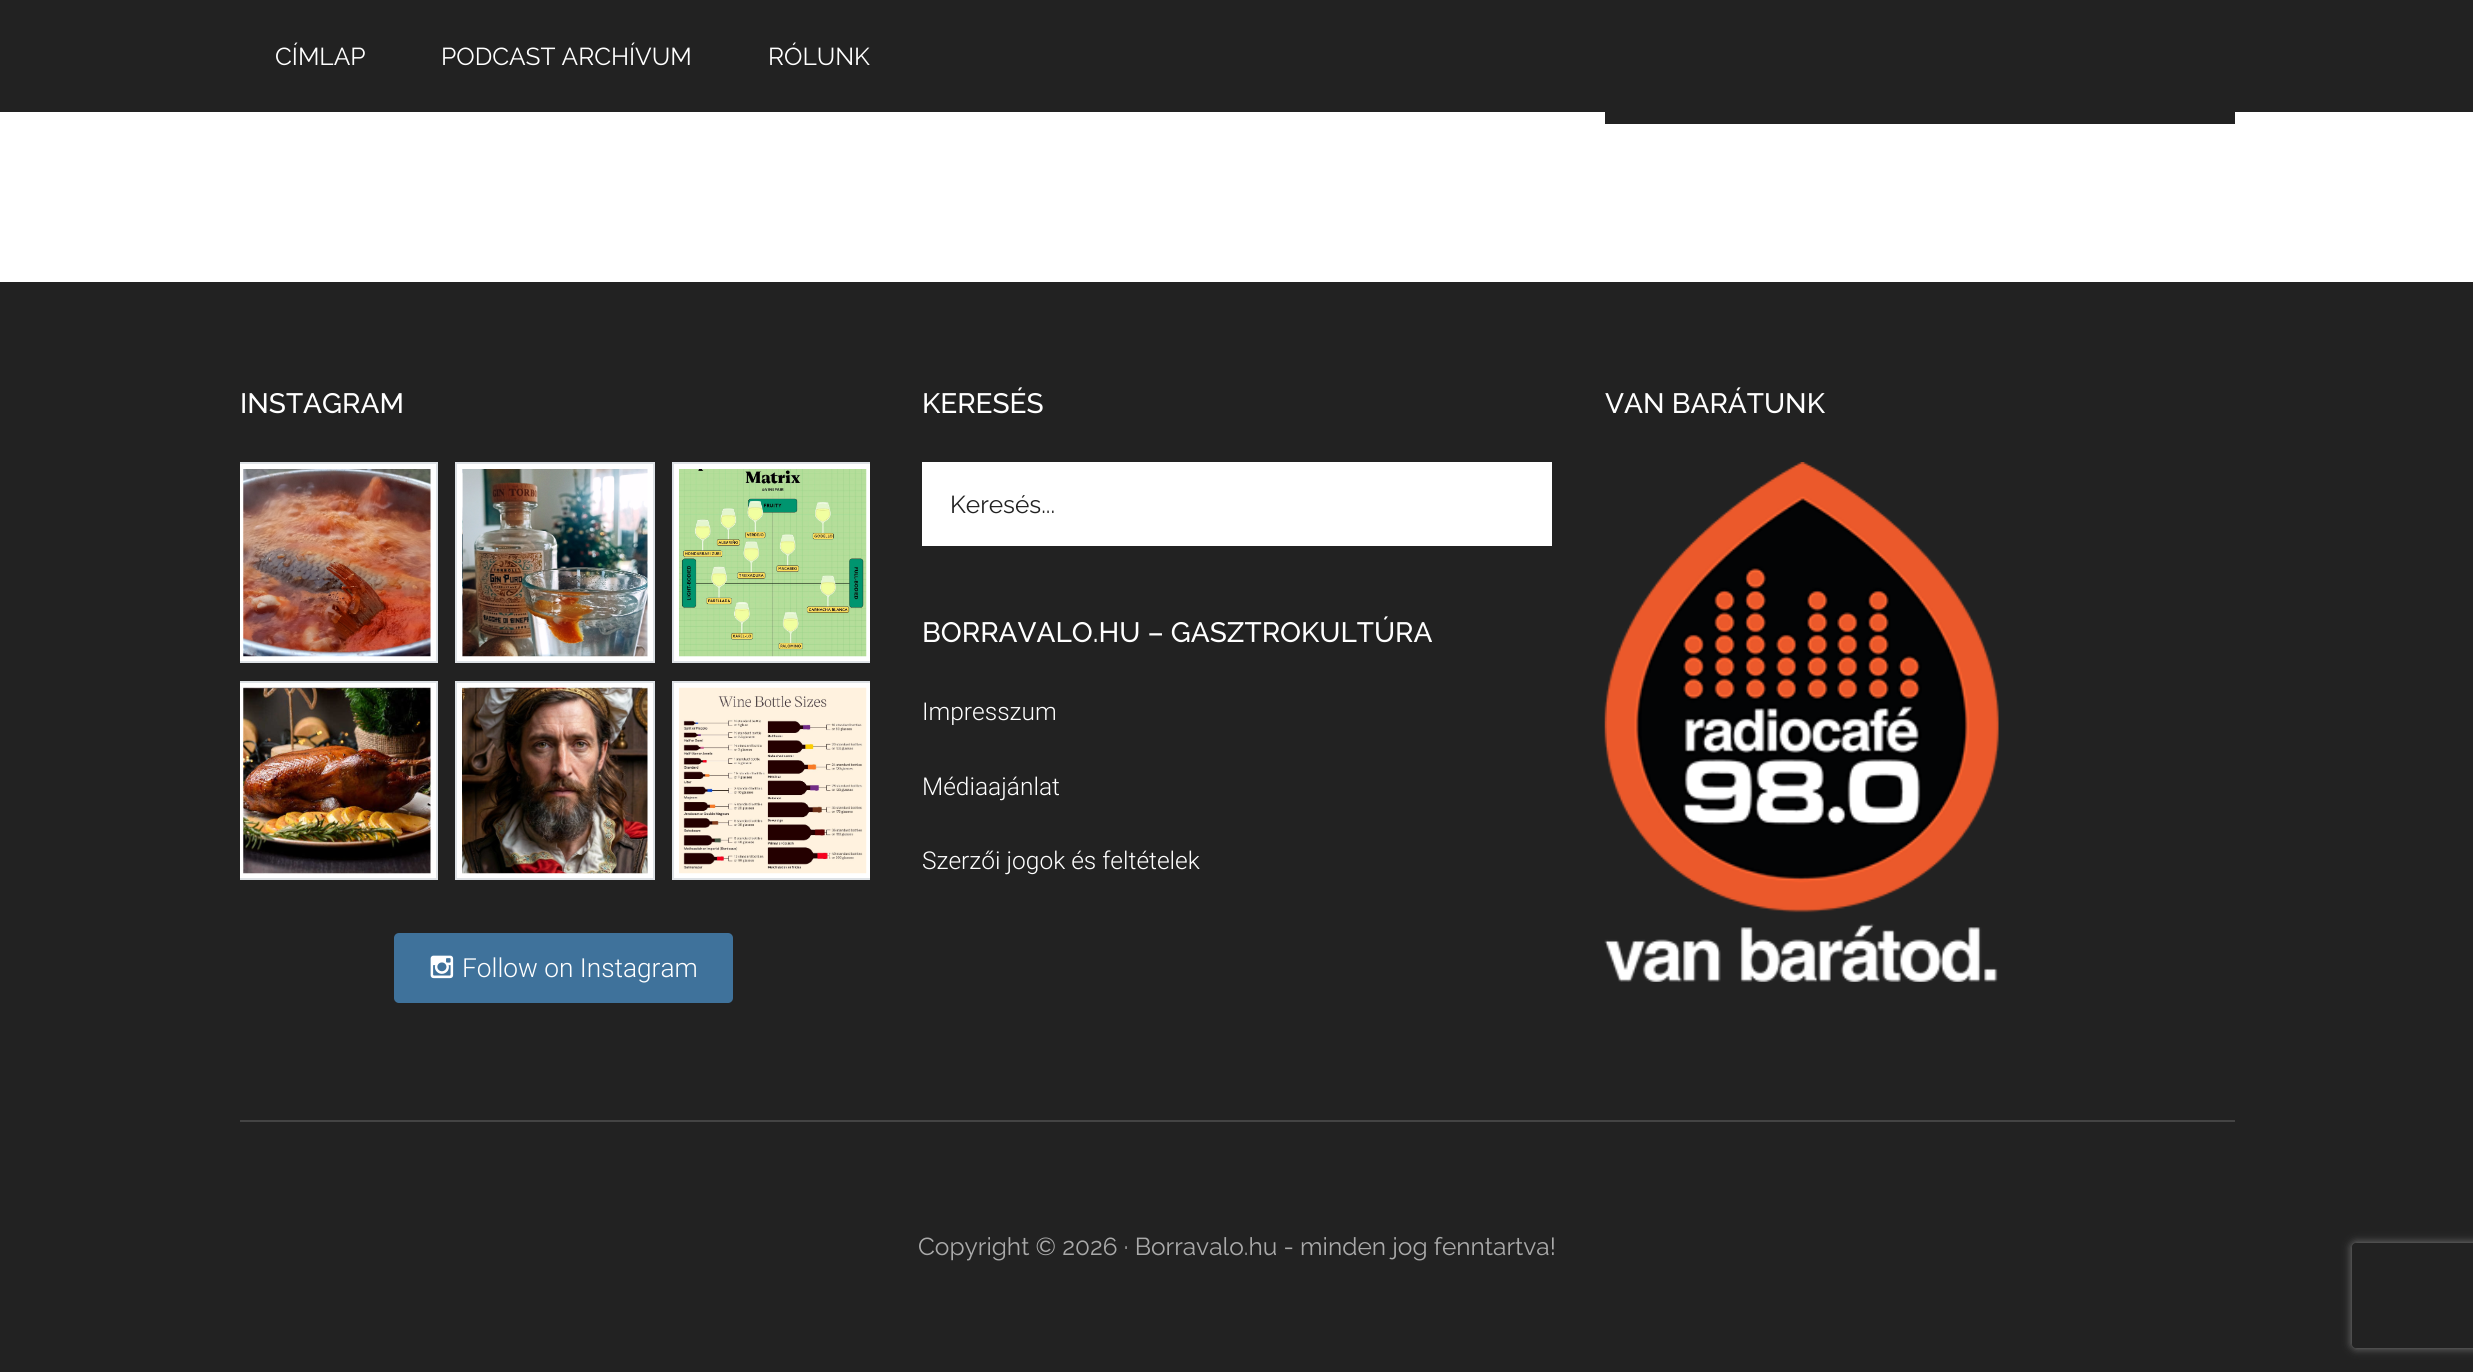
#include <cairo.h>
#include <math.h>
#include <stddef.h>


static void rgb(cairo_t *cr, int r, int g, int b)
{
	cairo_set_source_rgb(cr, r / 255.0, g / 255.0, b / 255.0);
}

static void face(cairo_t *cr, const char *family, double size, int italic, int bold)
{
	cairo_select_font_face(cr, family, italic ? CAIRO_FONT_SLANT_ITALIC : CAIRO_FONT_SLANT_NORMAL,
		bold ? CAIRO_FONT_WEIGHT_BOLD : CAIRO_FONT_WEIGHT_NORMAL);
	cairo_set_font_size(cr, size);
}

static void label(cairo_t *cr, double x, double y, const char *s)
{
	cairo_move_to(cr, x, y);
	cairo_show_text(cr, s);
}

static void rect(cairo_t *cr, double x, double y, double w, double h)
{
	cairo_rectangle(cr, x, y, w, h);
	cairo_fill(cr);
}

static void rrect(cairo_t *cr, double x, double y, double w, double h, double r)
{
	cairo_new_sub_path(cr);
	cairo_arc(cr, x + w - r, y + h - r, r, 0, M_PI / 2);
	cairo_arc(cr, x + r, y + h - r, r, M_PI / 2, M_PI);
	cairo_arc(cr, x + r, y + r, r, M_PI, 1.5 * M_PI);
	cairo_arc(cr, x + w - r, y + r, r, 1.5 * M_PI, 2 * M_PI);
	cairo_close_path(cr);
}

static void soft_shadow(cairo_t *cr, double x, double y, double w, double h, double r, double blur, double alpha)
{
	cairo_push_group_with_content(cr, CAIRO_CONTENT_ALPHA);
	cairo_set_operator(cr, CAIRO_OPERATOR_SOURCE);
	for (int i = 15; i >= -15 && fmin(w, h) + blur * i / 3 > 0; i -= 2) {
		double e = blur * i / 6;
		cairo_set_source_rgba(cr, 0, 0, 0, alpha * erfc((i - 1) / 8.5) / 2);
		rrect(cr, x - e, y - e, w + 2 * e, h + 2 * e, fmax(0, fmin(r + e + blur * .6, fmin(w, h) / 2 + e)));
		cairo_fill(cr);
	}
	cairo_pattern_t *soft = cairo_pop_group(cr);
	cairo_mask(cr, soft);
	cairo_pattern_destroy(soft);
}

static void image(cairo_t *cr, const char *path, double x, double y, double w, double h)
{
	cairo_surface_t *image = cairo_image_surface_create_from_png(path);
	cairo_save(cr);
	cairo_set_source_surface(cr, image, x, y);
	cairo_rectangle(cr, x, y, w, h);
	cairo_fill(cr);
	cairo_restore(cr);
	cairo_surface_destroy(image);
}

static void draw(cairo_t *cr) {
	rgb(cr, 255, 255, 255);
	cairo_paint(cr);
	rgb(cr, 34, 34, 34);
	rect(cr, 0, 0, 2473, 112);
	face(cr, "Raleway", 24.5, 0, 0);
	rgb(cr, 255, 255, 255);
	label(cr, 275, 65, "CÍMLAP");
	label(cr, 441, 65, "PODCAST ARCHÍVUM");
	label(cr, 768, 65, "RÓLUNK");
	rgb(cr, 34, 34, 34);
	rect(cr, 1605, 112, 630, 12);
	rect(cr, 0, 282, 2473, 1090);
	face(cr, "Raleway Medium", 28, 0, 0);
	rgb(cr, 255, 255, 255);
	label(cr, 240, 413, "INSTAGRAM");
	rect(cr, 240, 464, 196, 197);
	cairo_save(cr);
	cairo_rectangle(cr, 240, 387, 630, 616);
	cairo_clip(cr);
	cairo_rectangle(cr, 237, 463, 200, 199);
	rgb(cr, 222, 226, 230);
	cairo_stroke(cr);
	cairo_restore(cr);
	image(cr, "image0.png", 243, 469, 188, 188);
	cairo_rectangle(cr, 456, 463, 198, 199);
	cairo_fill_preserve(cr);
	rgb(cr, 222, 226, 230);
	cairo_stroke(cr);
	image(cr, "image1.png", 462, 469, 186, 188);
	rgb(cr, 255, 255, 255);
	rect(cr, 674, 464, 196, 197);
	cairo_save(cr);
	cairo_rectangle(cr, 240, 387, 630, 616);
	cairo_clip(cr);
	cairo_rectangle(cr, 673, 463, 199, 199);
	rgb(cr, 222, 226, 230);
	cairo_stroke(cr);
	cairo_restore(cr);
	image(cr, "image2.png", 679, 469, 188, 188);
	rect(cr, 240, 683, 196, 195);
	cairo_save(cr);
	cairo_rectangle(cr, 240, 387, 630, 616);
	cairo_clip(cr);
	cairo_rectangle(cr, 237, 682, 200, 197);
	rgb(cr, 222, 226, 230);
	cairo_stroke(cr);
	cairo_restore(cr);
	image(cr, "image3.png", 243, 687, 188, 187);
	cairo_rectangle(cr, 456, 682, 198, 197);
	cairo_fill_preserve(cr);
	rgb(cr, 222, 226, 230);
	cairo_stroke(cr);
	image(cr, "image4.png", 462, 687, 186, 187);
	rgb(cr, 255, 255, 255);
	rect(cr, 674, 683, 196, 195);
	cairo_save(cr);
	cairo_rectangle(cr, 240, 387, 630, 616);
	cairo_clip(cr);
	cairo_rectangle(cr, 673, 682, 199, 197);
	rgb(cr, 222, 226, 230);
	cairo_stroke(cr);
	cairo_restore(cr);
	image(cr, "image5.png", 679, 687, 188, 187);
	rgb(cr, 63, 114, 155);
	rrect(cr, 394, 933, 339, 70, 5);
	cairo_fill(cr);
	image(cr, "image6.png", 430, 955, 24, 24);
	face(cr, "Roboto Light", 26.25, 0, 0);
	rgb(cr, 255, 255, 255);
	label(cr, 462, 977, "Follow on Instagram");
	face(cr, "Raleway Medium", 28, 0, 0);
	label(cr, 922, 413, "KERESÉS");
	rect(cr, 922, 462, 630, 84);
	face(cr, "Raleway", 24.5, 0, 0);
	rgb(cr, 34, 34, 34);
	label(cr, 950, 513, "Keresés...");
	face(cr, "Raleway Medium", 28, 0, 0);
	rgb(cr, 255, 255, 255);
	label(cr, 922, 642, "BORRAVALO.HU – GASZTROKULTÚRA");
	face(cr, "Roboto Light", 24.5, 0, 0);
	label(cr, 922, 720, "Impresszum");
	label(cr, 922, 795, "Médiaajánlat");
	label(cr, 922, 869, "Szerzői jogok és feltételek");
	face(cr, "Raleway Medium", 28, 0, 0);
	label(cr, 1605, 413, "VAN BARÁTUNK");
	image(cr, "image7.png", 1604, 462, 395, 520);
	rgb(cr, 68, 68, 68);
	rect(cr, 240, 1120, 1995, 2);
	face(cr, "Raleway", 24.5, 0, 0);
	rgb(cr, 170, 170, 170);
	label(cr, 918, 1255, "Copyright © 2026 · Borravalo.hu - minden jog fenntartva!");
	cairo_save(cr);
	cairo_set_fill_rule(cr, CAIRO_FILL_RULE_EVEN_ODD);
	cairo_new_path(cr);
	cairo_move_to(cr, 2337, 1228);
	cairo_line_to(cr, 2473, 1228);
	cairo_line_to(cr, 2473, 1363);
	cairo_line_to(cr, 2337, 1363);
	cairo_close_path(cr);
	cairo_move_to(cr, 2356, 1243);
	cairo_line_to(cr, 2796, 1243);
	cairo_curve_to(cr, 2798, 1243, 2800, 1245, 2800, 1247);
	cairo_line_to(cr, 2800, 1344);
	cairo_curve_to(cr, 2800, 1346, 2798, 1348, 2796, 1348);
	cairo_line_to(cr, 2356, 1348);
	cairo_curve_to(cr, 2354, 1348, 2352, 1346, 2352, 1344);
	cairo_line_to(cr, 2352, 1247);
	cairo_curve_to(cr, 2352, 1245, 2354, 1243, 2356, 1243);
	cairo_close_path(cr);
	cairo_clip(cr);
	rgb(cr, 128, 128, 128);
	soft_shadow(cr, 2352, 1243, 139, 105, 4, 4.5, 1);
	cairo_restore(cr);
}

int main(void) {
	cairo_surface_t *surface = cairo_image_surface_create(CAIRO_FORMAT_RGB24, 2473, 1372);
	cairo_t *cr = cairo_create(surface);
	cairo_font_options_t *options = cairo_font_options_create();
	cairo_font_options_set_hint_metrics(options, CAIRO_HINT_METRICS_OFF);
	cairo_font_options_set_hint_style(options, CAIRO_HINT_STYLE_NONE);
	cairo_set_font_options(cr, options);
	cairo_set_miter_limit(cr, 4);
	draw(cr);
	cairo_surface_write_to_png(surface, "render.png");
	cairo_font_options_destroy(options);
	cairo_destroy(cr);
	cairo_surface_destroy(surface);
	return 0;
}
